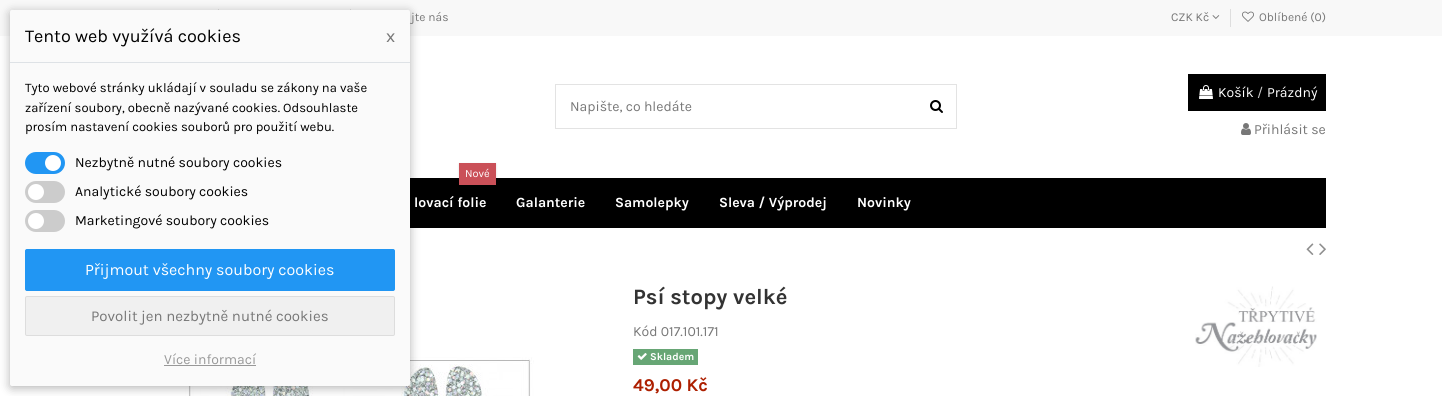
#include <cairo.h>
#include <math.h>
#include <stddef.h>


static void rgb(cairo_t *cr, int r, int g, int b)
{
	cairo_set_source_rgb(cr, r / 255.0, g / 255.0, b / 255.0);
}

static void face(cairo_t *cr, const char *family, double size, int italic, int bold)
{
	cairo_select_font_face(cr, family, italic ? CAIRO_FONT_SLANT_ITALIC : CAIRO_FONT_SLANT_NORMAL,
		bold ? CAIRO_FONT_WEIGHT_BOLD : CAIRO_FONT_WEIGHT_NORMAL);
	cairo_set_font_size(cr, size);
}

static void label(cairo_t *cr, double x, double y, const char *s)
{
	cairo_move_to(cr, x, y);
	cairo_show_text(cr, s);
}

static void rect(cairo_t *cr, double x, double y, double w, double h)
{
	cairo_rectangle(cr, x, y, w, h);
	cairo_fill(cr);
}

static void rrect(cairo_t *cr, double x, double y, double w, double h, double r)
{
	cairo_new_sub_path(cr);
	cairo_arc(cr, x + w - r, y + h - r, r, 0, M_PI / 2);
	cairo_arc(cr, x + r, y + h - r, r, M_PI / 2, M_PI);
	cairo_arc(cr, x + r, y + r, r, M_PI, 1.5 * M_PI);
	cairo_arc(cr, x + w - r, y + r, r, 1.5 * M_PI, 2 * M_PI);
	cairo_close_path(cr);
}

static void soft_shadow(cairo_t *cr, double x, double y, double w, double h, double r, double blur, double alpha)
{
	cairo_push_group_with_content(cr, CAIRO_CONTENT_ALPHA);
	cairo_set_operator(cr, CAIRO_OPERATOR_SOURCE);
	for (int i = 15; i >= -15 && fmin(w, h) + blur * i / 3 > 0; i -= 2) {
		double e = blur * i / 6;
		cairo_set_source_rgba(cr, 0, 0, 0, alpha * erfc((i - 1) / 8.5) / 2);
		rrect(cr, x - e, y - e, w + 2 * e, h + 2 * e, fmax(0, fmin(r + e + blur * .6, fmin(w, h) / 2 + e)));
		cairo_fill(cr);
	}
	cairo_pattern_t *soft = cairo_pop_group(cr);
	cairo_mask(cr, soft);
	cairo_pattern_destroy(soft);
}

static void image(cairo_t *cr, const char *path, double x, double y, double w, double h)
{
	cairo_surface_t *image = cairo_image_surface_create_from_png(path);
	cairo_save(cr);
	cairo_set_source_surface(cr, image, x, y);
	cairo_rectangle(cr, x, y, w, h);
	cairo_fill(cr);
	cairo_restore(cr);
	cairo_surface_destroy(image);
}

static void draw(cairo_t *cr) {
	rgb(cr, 255, 255, 255);
	cairo_paint(cr);
	rgb(cr, 248, 248, 248);
	rect(cr, 0, 0, 1442, 36);
	rgb(cr, 222, 222, 222);
	rect(cr, 218, 9, 1, 1);
	rect(cr, 350, 9, 1, 1);
	rgb(cr, 0, 0, 0);
	rect(cr, 410, 178, 916, 50);
	image(cr, "image7.png", 185, 357, 349, 39);
	rgb(cr, 0, 0, 0);
	soft_shadow(cr, 10, 12, 400, 376, 2, 5, 0.3);
	rgb(cr, 250, 250, 250);
	rrect(cr, 10, 10, 400, 376, 2);
	cairo_fill(cr);
	rgb(cr, 222, 226, 230);
	rect(cr, 10, 62, 400, 1);
	face(cr, "Karla", 18, 0, 0);
	rgb(cr, 0, 0, 0);
	label(cr, 25, 42, "Tento web využívá cookies");
	rgb(cr, 119, 119, 119);
	label(cr, 386, 42, "x");
	face(cr, "Karla", 13, 0, 0);
	rgb(cr, 0, 0, 0);
	label(cr, 25, 92, "Tyto webové stránky ukládají v souladu se zákony na vaše");
	label(cr, 25, 112, "zařízení soubory, obecně nazývané cookies. Odsouhlaste");
	label(cr, 25, 131, "prosím nastavení cookies souborů pro použití webu.");
	rgb(cr, 33, 150, 243);
	rrect(cr, 25, 152, 40, 22, 11);
	cairo_fill(cr);
	rgb(cr, 255, 255, 255);
	cairo_arc(cr, 53, 163, 8, 0, 2 * M_PI);
	cairo_fill(cr);
	face(cr, "Karla", 14, 0, 0);
	rgb(cr, 0, 0, 0);
	label(cr, 75, 167, "Nezbytně nutné soubory cookies");
	rgb(cr, 204, 204, 204);
	rrect(cr, 25, 181, 40, 22, 11);
	cairo_fill(cr);
	rgb(cr, 255, 255, 255);
	cairo_arc(cr, 36, 192, 8, 0, 2 * M_PI);
	cairo_fill(cr);
	rgb(cr, 0, 0, 0);
	label(cr, 75, 196, "Analytické soubory cookies");
	rgb(cr, 204, 204, 204);
	rrect(cr, 25, 210, 40, 22, 11);
	cairo_fill(cr);
	rgb(cr, 255, 255, 255);
	cairo_arc(cr, 36, 221, 8, 0, 2 * M_PI);
	cairo_fill(cr);
	rgb(cr, 0, 0, 0);
	label(cr, 75, 225, "Marketingové soubory cookies");
	rgb(cr, 33, 150, 243);
	rrect(cr, 25.5, 249.5, 369, 41, 1.5);
	cairo_fill_preserve(cr);
	cairo_set_line_width(cr, 1);
	cairo_stroke(cr);
	face(cr, "Karla", 16, 0, 0);
	rgb(cr, 255, 255, 255);
	label(cr, 85, 275, "Přijmout všechny soubory cookies");
	rgb(cr, 240, 240, 240);
	rrect(cr, 25.5, 296.5, 369, 39, 1.5);
	cairo_fill_preserve(cr);
	rgb(cr, 221, 221, 221);
	cairo_stroke(cr);
	face(cr, "Karla", 15, 0, 0);
	rgb(cr, 119, 119, 119);
	label(cr, 91, 321, "Povolit jen nezbytně nutné cookies");
	face(cr, "Karla", 14, 0, 0);
	rgb(cr, 152, 152, 152);
	label(cr, 164, 364, "Více informací");
	rect(cr, 164, 365, 92, 1);
	face(cr, "Karla", 12, 0, 0);
	rgb(cr, 119, 119, 119);
	label(cr, 411, 21, "jte nás");
	label(cr, 1171, 21, "CZK Kč");
	image(cr, "image0.png", 1212, 15, 8, 4);
	rgb(cr, 222, 222, 222);
	rect(cr, 1230, 9, 1, 18);
	image(cr, "image1.png", 1242, 11, 12, 11);
	rgb(cr, 119, 119, 119);
	label(cr, 1259, 21, "Oblíbené (0)");
	cairo_rectangle(cr, 555.5, 84.5, 401, 44);
	rgb(cr, 227, 227, 227);
	cairo_stroke(cr);
	face(cr, "Karla", 14, 0, 0);
	rgb(cr, 119, 119, 119);
	label(cr, 570, 111, "Napište, co hledáte");
	image(cr, "image2.png", 930, 100, 13, 13);
	rgb(cr, 0, 0, 0);
	rect(cr, 1188, 74, 138, 37);
	image(cr, "image3.png", 1199, 85, 14, 14);
	rgb(cr, 255, 255, 255);
	label(cr, 1218, 97, "Košík");
	rgb(cr, 204, 204, 204);
	label(cr, 1257, 97, "/");
	rgb(cr, 255, 255, 255);
	label(cr, 1267, 97, "Prázdný");
	image(cr, "image4.png", 1241, 123, 10, 12);
	rgb(cr, 119, 119, 119);
	label(cr, 1254, 134, "Přihlásit se");
	rgb(cr, 0, 0, 0);
	soft_shadow(cr, 459, 164, 37, 22, 0, 1, 0.15);
	rgb(cr, 202, 80, 88);
	rect(cr, 459, 163, 37, 22);
	face(cr, "Karla", 11, 0, 0);
	rgb(cr, 255, 255, 255);
	label(cr, 465, 177, "Nové");
	face(cr, "Karla", 14, 0, 1);
	label(cr, 414, 207, "lovací folie");
	label(cr, 516, 207, "Galanterie");
	label(cr, 615, 207, "Samolepky");
	label(cr, 719, 207, "Sleva / Výprodej");
	label(cr, 857, 207, "Novinky");
	image(cr, "image5.png", 1306, 243, 8, 12);
	image(cr, "image6.png", 1319, 243, 7, 12);
	face(cr, "Karla", 22, 0, 1);
	rgb(cr, 51, 51, 51);
	label(cr, 633, 304, "Psí stopy velké");
	image(cr, "image8.png", 1195, 286, 122, 81);
	face(cr, "Karla", 14, 0, 0);
	rgb(cr, 119, 119, 119);
	label(cr, 633, 336, "Kód 017.101.171");
	rgb(cr, 103, 166, 117);
	rect(cr, 633, 349, 65, 16);
	image(cr, "image9.png", 637, 353, 10, 7);
	face(cr, "Karla", 10.5, 0, 1);
	rgb(cr, 255, 255, 255);
	label(cr, 650, 360, "Skladem");
	face(cr, "Karla", 18, 0, 1);
	rgb(cr, 173, 31, 0);
	label(cr, 633, 391, "49,00 Kč");
}

int main(void) {
	cairo_surface_t *surface = cairo_image_surface_create(CAIRO_FORMAT_RGB24, 1442, 396);
	cairo_t *cr = cairo_create(surface);
	cairo_font_options_t *options = cairo_font_options_create();
	cairo_font_options_set_hint_metrics(options, CAIRO_HINT_METRICS_OFF);
	cairo_font_options_set_hint_style(options, CAIRO_HINT_STYLE_NONE);
	cairo_set_font_options(cr, options);
	cairo_set_miter_limit(cr, 4);
	draw(cr);
	cairo_surface_write_to_png(surface, "render.png");
	cairo_font_options_destroy(options);
	cairo_destroy(cr);
	cairo_surface_destroy(surface);
	return 0;
}
